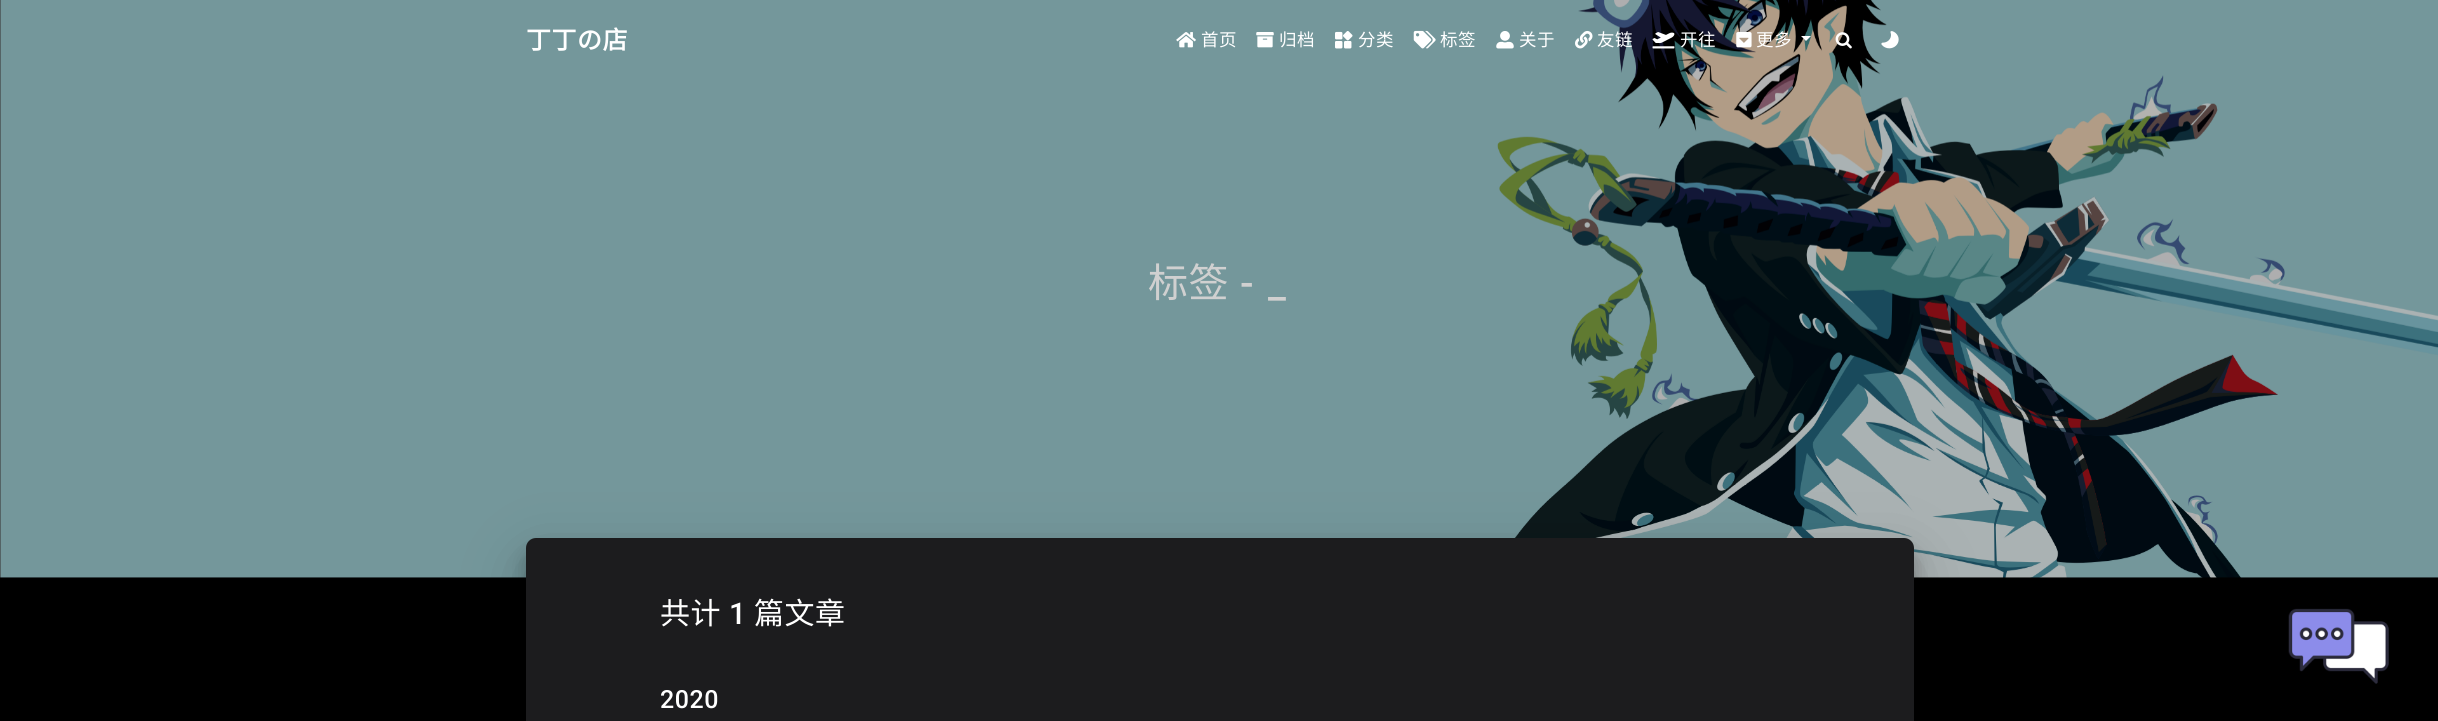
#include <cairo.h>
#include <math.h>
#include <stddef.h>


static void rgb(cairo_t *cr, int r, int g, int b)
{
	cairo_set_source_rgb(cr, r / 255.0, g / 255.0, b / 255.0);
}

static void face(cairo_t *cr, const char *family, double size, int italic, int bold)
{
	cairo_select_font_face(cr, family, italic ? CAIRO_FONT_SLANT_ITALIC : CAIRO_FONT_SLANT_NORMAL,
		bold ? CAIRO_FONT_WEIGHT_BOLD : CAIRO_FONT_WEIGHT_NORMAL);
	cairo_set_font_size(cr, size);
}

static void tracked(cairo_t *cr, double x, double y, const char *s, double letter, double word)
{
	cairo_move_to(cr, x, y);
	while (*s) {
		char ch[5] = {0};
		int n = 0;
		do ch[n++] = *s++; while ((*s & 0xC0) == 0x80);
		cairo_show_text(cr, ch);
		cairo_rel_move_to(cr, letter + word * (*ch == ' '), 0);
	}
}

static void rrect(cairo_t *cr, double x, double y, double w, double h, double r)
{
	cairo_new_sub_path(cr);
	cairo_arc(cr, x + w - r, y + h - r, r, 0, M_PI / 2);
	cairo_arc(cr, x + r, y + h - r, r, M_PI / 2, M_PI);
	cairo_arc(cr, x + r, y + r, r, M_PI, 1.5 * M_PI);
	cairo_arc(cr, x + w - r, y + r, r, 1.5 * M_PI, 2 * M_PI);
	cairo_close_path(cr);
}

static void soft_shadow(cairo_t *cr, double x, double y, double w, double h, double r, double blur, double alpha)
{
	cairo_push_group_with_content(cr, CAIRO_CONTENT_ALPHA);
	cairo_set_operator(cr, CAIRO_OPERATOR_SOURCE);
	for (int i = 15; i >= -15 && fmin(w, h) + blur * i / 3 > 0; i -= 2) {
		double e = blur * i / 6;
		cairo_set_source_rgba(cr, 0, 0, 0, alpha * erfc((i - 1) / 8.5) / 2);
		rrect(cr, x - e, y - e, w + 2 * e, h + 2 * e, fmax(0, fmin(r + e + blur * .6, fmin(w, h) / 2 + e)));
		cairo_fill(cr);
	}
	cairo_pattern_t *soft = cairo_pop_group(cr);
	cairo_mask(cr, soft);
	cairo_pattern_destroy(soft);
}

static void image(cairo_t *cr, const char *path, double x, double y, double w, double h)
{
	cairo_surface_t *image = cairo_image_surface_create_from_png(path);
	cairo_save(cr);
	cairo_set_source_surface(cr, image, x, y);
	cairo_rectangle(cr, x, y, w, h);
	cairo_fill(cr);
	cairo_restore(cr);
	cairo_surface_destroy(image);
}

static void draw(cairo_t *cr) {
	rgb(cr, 0, 0, 0);
	cairo_paint(cr);
	image(cr, "image10.png", 0, 0, 2438, 578);
	face(cr, "Noto Sans CJK SC", 25, 0, 1);
	rgb(cr, 255, 255, 255);
	tracked(cr, 526, 49, "丁丁の店", 0.5, 0);
	image(cr, "image0.png", 1176, 32, 20, 16);
	face(cr, "Noto Sans CJK SC", 17.5, 0, 0);
	tracked(cr, 1201, 46, "首页", 0.5, 0);
	image(cr, "image1.png", 1256, 32, 18, 16);
	tracked(cr, 1279, 46, "归档", 0.5, 0);
	image(cr, "image2.png", 1335, 31, 18, 18);
	tracked(cr, 1358, 46, "分类", 0.5, 0);
	image(cr, "image3.png", 1413, 30, 23, 19);
	tracked(cr, 1440, 46, "标签", 0.5, 0);
	image(cr, "image4.png", 1496, 31, 18, 18);
	tracked(cr, 1519, 46, "关于", 0.5, 0);
	image(cr, "image5.png", 1575, 30, 18, 19);
	tracked(cr, 1597, 46, "友链", 0.5, 0);
	image(cr, "image6.png", 1652, 32, 23, 17);
	tracked(cr, 1680, 46, "开往", 0.5, 0);
	image(cr, "image7.png", 1736, 32, 16, 16);
	tracked(cr, 1756, 46, "更多", 0.5, 0);
	cairo_new_path(cr);
	cairo_move_to(cr, 1801, 36);
	cairo_line_to(cr, 1811, 36);
	cairo_line_to(cr, 1806, 41);
	cairo_close_path(cr);
	cairo_fill(cr);
	image(cr, "image8.png", 1835, 32, 17, 17);
	image(cr, "image9.png", 1881, 31, 18, 18);
	face(cr, "Noto Sans CJK SC", 40, 0, 0);
	rgb(cr, 208, 208, 208);
	tracked(cr, 1148, 297, "标签", 0.5, 0);
	face(cr, "Roboto Medium", 40, 0, 0);
	tracked(cr, 1240, 297, "-", 0.5, 0);
	tracked(cr, 1268, 297, "_", 0.5, 0);
	rgb(cr, 0, 0, 0);
	soft_shadow(cr, 526, 559, 1388, 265, 10, 31, 0.19);
	soft_shadow(cr, 526, 553, 1388, 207, 10, 9.5, 0.24);
	rgb(cr, 28, 28, 30);
	rrect(cr, 526, 538, 1388, 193, 10);
	cairo_fill(cr);
	face(cr, "Noto Sans CJK SC", 30, 0, 0);
	rgb(cr, 255, 255, 255);
	tracked(cr, 660, 624, "共计", 0.5, 0);
	face(cr, "Roboto Medium", 30, 0, 0);
	tracked(cr, 729, 624, "1", 0.5, 0);
	face(cr, "Noto Sans CJK SC", 30, 0, 0);
	tracked(cr, 754, 624, "篇文章", 0.5, 0);
	face(cr, "Roboto Medium", 25, 0, 0);
	tracked(cr, 660, 708, "2020", 0.5, 0);
	image(cr, "image11.png", 2288, 608, 101, 76);
}

int main(void) {
	cairo_surface_t *surface = cairo_image_surface_create(CAIRO_FORMAT_RGB24, 2438, 721);
	cairo_t *cr = cairo_create(surface);
	cairo_font_options_t *options = cairo_font_options_create();
	cairo_font_options_set_hint_metrics(options, CAIRO_HINT_METRICS_OFF);
	cairo_font_options_set_hint_style(options, CAIRO_HINT_STYLE_NONE);
	cairo_set_font_options(cr, options);
	cairo_set_miter_limit(cr, 4);
	draw(cr);
	cairo_surface_write_to_png(surface, "render.png");
	cairo_font_options_destroy(options);
	cairo_destroy(cr);
	cairo_surface_destroy(surface);
	return 0;
}
